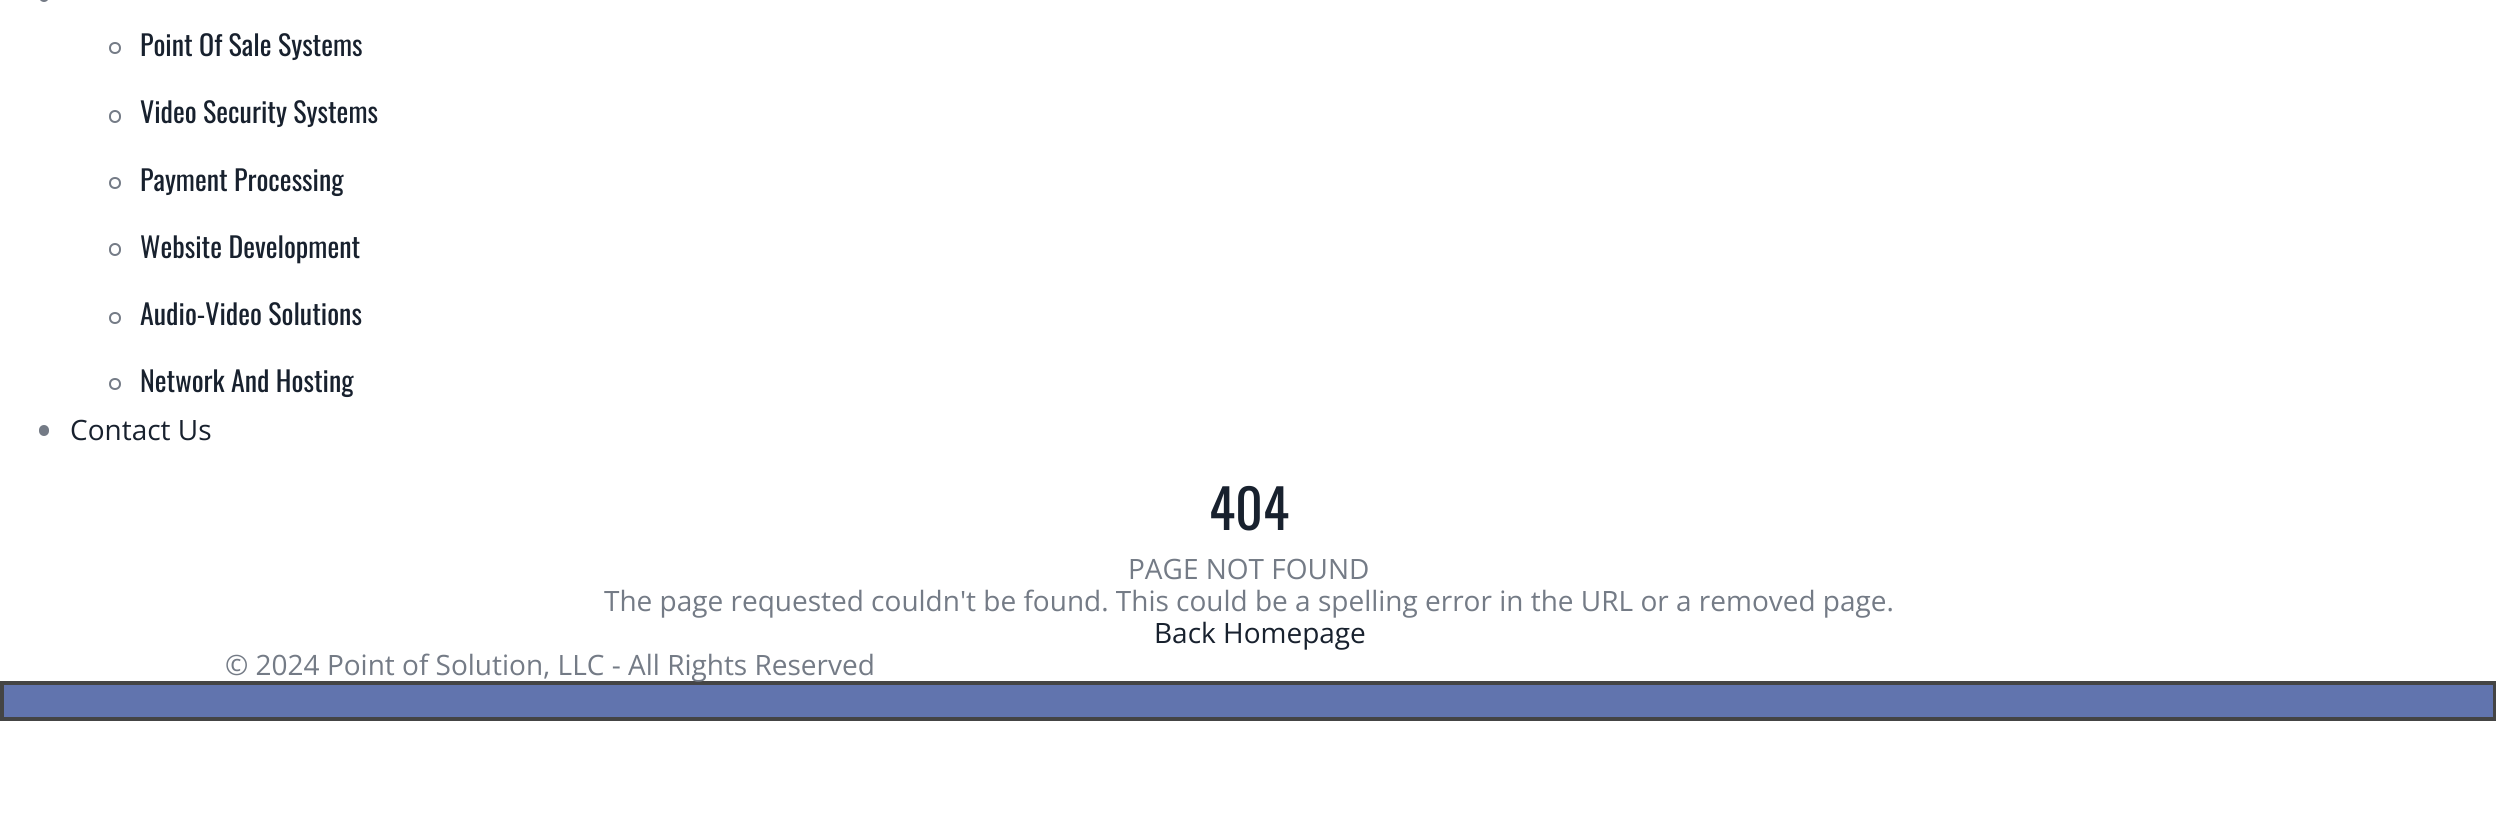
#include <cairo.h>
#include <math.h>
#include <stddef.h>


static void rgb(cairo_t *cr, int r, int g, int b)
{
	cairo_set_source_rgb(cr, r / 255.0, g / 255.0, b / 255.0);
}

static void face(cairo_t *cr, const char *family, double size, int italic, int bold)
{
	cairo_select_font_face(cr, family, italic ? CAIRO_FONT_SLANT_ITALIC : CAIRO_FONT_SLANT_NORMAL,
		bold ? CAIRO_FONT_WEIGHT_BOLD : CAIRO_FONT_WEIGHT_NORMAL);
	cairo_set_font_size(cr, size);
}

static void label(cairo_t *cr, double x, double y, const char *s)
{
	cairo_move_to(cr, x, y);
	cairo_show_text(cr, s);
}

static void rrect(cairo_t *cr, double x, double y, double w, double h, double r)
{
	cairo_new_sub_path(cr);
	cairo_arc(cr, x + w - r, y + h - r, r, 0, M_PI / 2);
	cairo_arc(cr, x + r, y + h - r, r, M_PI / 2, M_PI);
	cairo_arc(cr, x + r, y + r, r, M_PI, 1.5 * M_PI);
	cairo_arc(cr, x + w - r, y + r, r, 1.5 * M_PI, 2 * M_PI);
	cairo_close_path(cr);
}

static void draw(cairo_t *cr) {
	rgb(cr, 255, 255, 255);
	cairo_paint(cr);
	rgb(cr, 116, 123, 134);
	rrect(cr, 39, -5, 10, 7, 5);
	cairo_fill(cr);
	cairo_arc(cr, 115, 48, 5, 0, 2 * M_PI);
	cairo_stroke(cr);
	face(cr, "Oswald", 28, 0, 0);
	rgb(cr, 24, 33, 46);
	label(cr, 140, 56, "Point Of Sale Systems");
	rrect(cr, 110, 111, 10, 11, 5);
	rgb(cr, 116, 123, 134);
	cairo_stroke(cr);
	rgb(cr, 24, 33, 46);
	label(cr, 140, 123, "Video Security Systems");
	cairo_new_path(cr);
	cairo_arc(cr, 115, 183, 5, 0, 2 * M_PI);
	rgb(cr, 116, 123, 134);
	cairo_stroke(cr);
	rgb(cr, 24, 33, 46);
	label(cr, 140, 191, "Payment Processing");
	rrect(cr, 110, 244, 10, 11, 5);
	rgb(cr, 116, 123, 134);
	cairo_stroke(cr);
	rgb(cr, 24, 33, 46);
	label(cr, 140, 258, "Website Development");
	cairo_new_path(cr);
	cairo_arc(cr, 115, 318, 5, 0, 2 * M_PI);
	rgb(cr, 116, 123, 134);
	cairo_stroke(cr);
	rgb(cr, 24, 33, 46);
	label(cr, 140, 325, "Audio-Video Solutions");
	cairo_new_path(cr);
	cairo_arc(cr, 115, 384, 5, 0, 2 * M_PI);
	rgb(cr, 116, 123, 134);
	cairo_stroke(cr);
	rgb(cr, 24, 33, 46);
	label(cr, 140, 392, "Network And Hosting");
	rgb(cr, 116, 123, 134);
	rrect(cr, 39, 425, 10, 11, 5);
	cairo_fill(cr);
	face(cr, "Open Sans", 28, 0, 0);
	rgb(cr, 24, 33, 46);
	label(cr, 70, 440, "Contact Us");
	face(cr, "Oswald", 54, 0, 0);
	label(cr, 1209, 530, "404");
	face(cr, "Open Sans", 28, 0, 0);
	rgb(cr, 116, 123, 134);
	label(cr, 1128, 579, "PAGE NOT FOUND");
	label(cr, 604, 611, "The page requested couldn't be found. This could be a spelling error in the URL or a removed page.");
	rgb(cr, 24, 33, 46);
	label(cr, 1154, 643, "Back Homepage");
	rgb(cr, 97, 116, 174);
	cairo_rectangle(cr, 2, 683, 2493, 36);
	cairo_fill_preserve(cr);
	rgb(cr, 68, 68, 68);
	cairo_set_line_width(cr, 4);
	cairo_stroke(cr);
	rgb(cr, 116, 123, 134);
	label(cr, 225, 675, "© 2024 Point of Solution, LLC - All Rights Reserved");
}

int main(void) {
	cairo_surface_t *surface = cairo_image_surface_create(CAIRO_FORMAT_RGB24, 2496, 823);
	cairo_t *cr = cairo_create(surface);
	cairo_font_options_t *options = cairo_font_options_create();
	cairo_font_options_set_hint_metrics(options, CAIRO_HINT_METRICS_OFF);
	cairo_font_options_set_hint_style(options, CAIRO_HINT_STYLE_NONE);
	cairo_set_font_options(cr, options);
	cairo_set_miter_limit(cr, 4);
	draw(cr);
	cairo_surface_write_to_png(surface, "render.png");
	cairo_font_options_destroy(options);
	cairo_destroy(cr);
	cairo_surface_destroy(surface);
	return 0;
}
